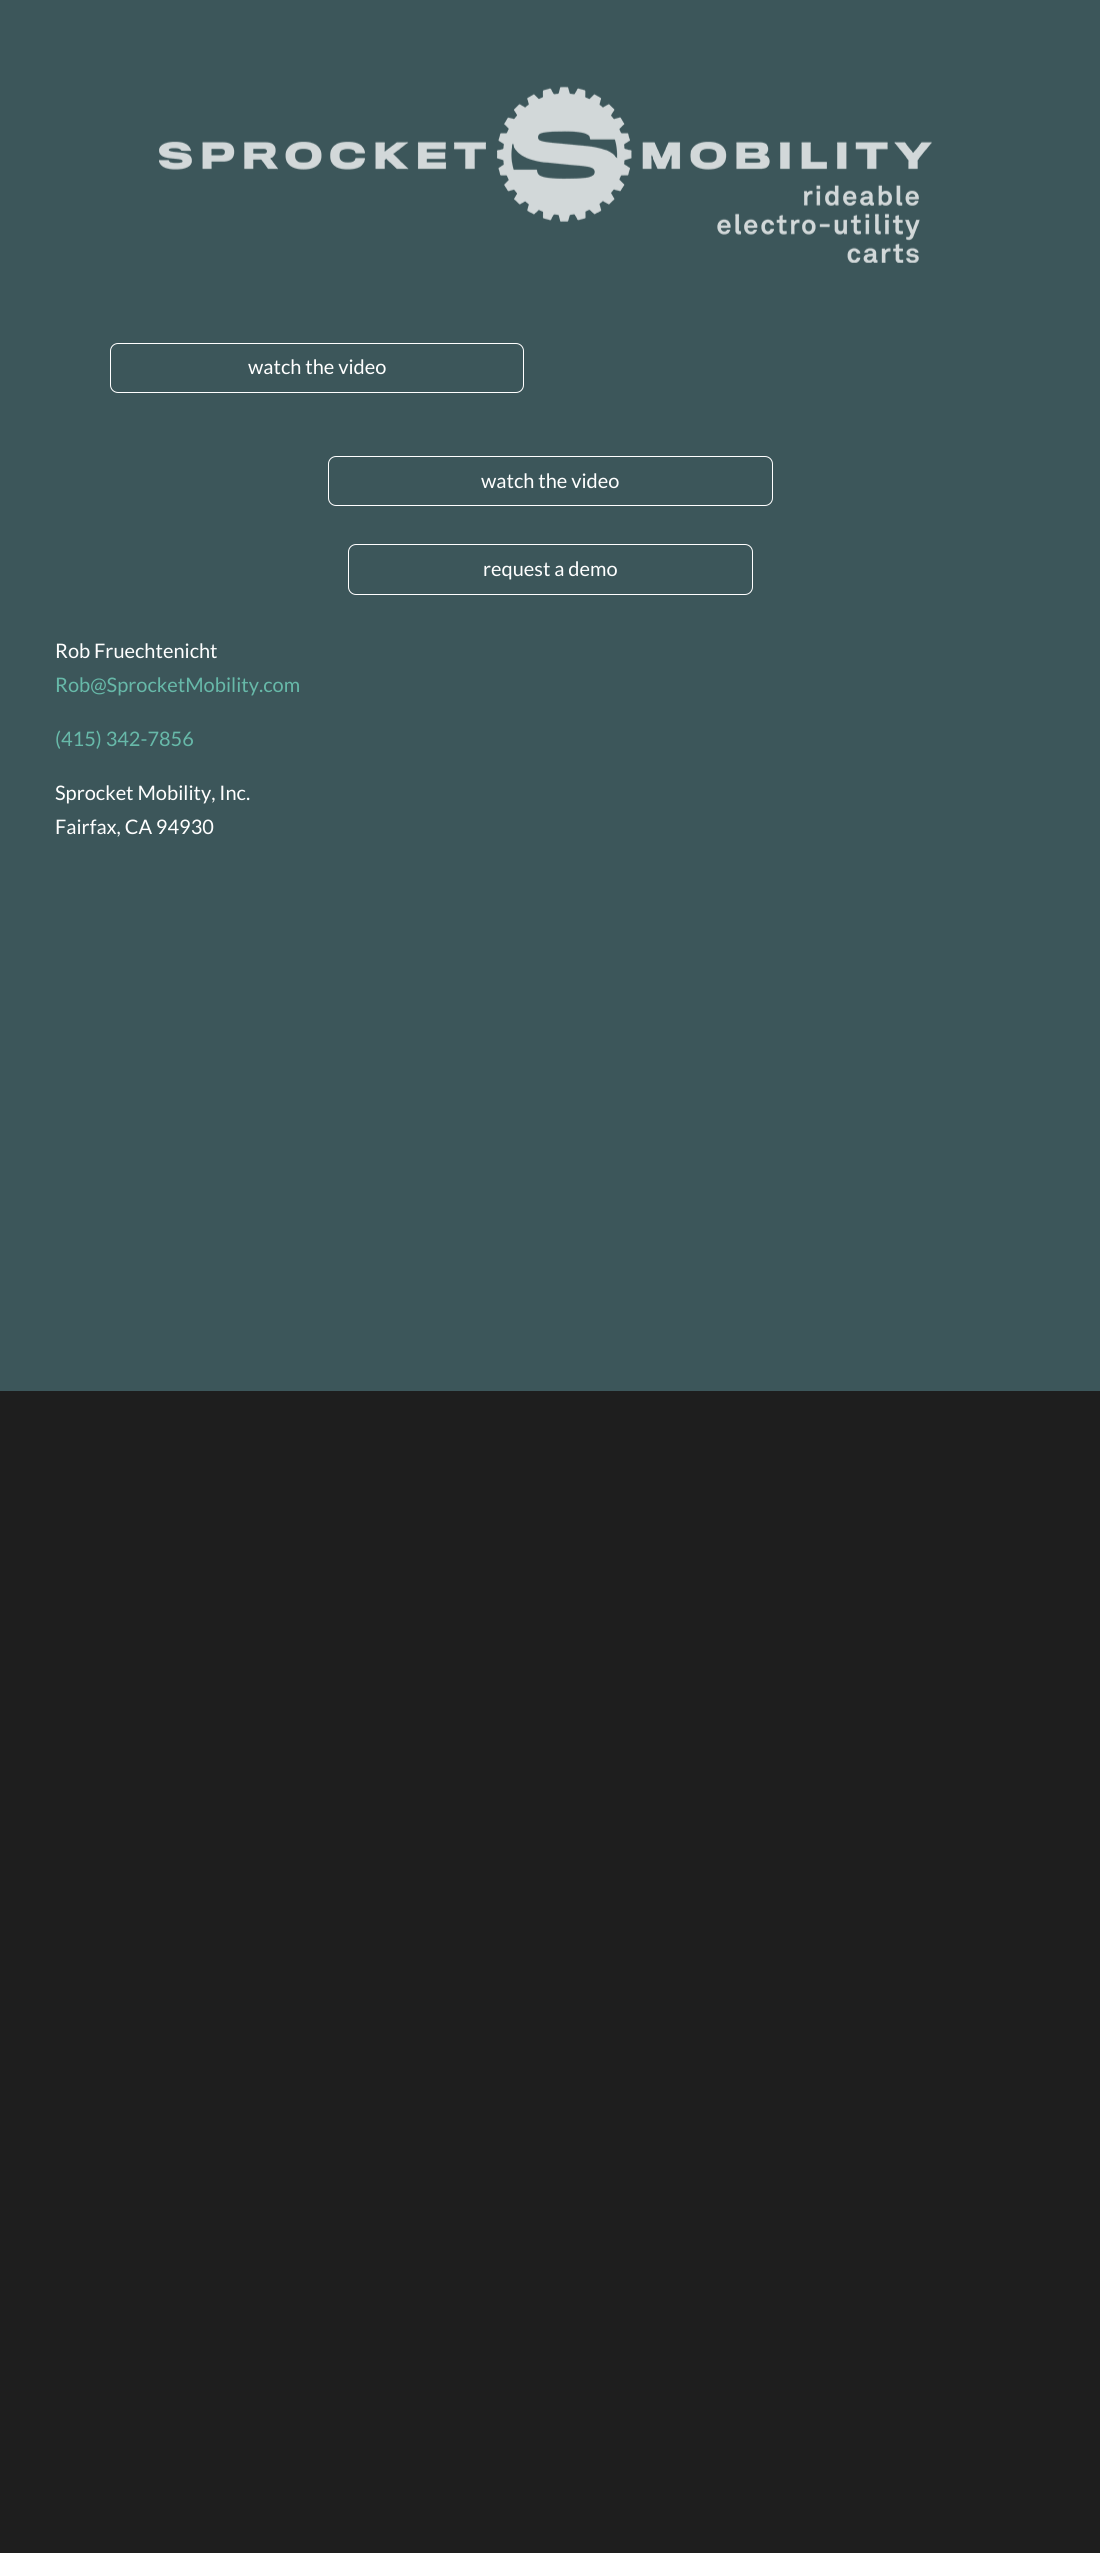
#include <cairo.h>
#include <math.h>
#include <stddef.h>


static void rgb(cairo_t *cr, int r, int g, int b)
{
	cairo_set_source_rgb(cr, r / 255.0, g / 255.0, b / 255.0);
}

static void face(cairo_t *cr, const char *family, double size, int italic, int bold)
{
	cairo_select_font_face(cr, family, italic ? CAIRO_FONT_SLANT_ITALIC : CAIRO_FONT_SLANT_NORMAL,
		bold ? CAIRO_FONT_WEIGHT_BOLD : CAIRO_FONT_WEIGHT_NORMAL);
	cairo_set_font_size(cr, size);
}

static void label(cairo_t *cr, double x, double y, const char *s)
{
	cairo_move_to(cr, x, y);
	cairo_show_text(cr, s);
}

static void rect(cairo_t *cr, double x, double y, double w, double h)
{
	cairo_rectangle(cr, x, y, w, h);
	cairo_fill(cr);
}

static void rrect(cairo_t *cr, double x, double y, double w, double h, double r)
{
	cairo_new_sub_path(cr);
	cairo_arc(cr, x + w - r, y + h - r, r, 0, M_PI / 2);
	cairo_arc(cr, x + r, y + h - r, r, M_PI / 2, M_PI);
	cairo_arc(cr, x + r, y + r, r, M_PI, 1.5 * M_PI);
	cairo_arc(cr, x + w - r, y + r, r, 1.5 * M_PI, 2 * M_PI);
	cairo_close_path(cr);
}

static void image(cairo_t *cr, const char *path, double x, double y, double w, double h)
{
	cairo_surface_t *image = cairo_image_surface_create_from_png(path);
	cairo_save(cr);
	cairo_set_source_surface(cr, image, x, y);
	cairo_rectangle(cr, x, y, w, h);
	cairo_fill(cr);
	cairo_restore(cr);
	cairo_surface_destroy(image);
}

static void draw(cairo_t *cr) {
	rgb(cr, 30, 30, 30);
	cairo_paint(cr);
	rgb(cr, 60, 86, 90);
	rect(cr, 0, 0, 1100, 1391);
	image(cr, "image0.png", 159, 86, 773, 177);
	rrect(cr, 110.5, 343.5, 413, 49, 7.5);
	rgb(cr, 255, 255, 255);
	cairo_set_line_width(cr, 1);
	cairo_stroke(cr);
	face(cr, "Lato", 20, 0, 0);
	label(cr, 248, 374, "watch the video");
	rrect(cr, 328.5, 456.5, 444, 49, 7.5);
	cairo_stroke(cr);
	label(cr, 481, 488, "watch the video");
	rrect(cr, 348.5, 544.5, 404, 50, 7.5);
	cairo_stroke(cr);
	label(cr, 483, 576, "request a demo");
	label(cr, 55, 658, "Rob Fruechtenicht");
	rgb(cr, 103, 185, 169);
	label(cr, 55, 692, "Rob@SprocketMobility.com");
	label(cr, 55, 746, "(415) 342-7856");
	rgb(cr, 255, 255, 255);
	label(cr, 55, 800, "Sprocket Mobility, Inc.");
	label(cr, 55, 834, "Fairfax, CA 94930");
}

int main(void) {
	cairo_surface_t *surface = cairo_image_surface_create(CAIRO_FORMAT_RGB24, 1100, 2553);
	cairo_t *cr = cairo_create(surface);
	cairo_font_options_t *options = cairo_font_options_create();
	cairo_font_options_set_hint_metrics(options, CAIRO_HINT_METRICS_OFF);
	cairo_font_options_set_hint_style(options, CAIRO_HINT_STYLE_NONE);
	cairo_set_font_options(cr, options);
	cairo_set_miter_limit(cr, 4);
	draw(cr);
	cairo_surface_write_to_png(surface, "render.png");
	cairo_font_options_destroy(options);
	cairo_destroy(cr);
	cairo_surface_destroy(surface);
	return 0;
}
